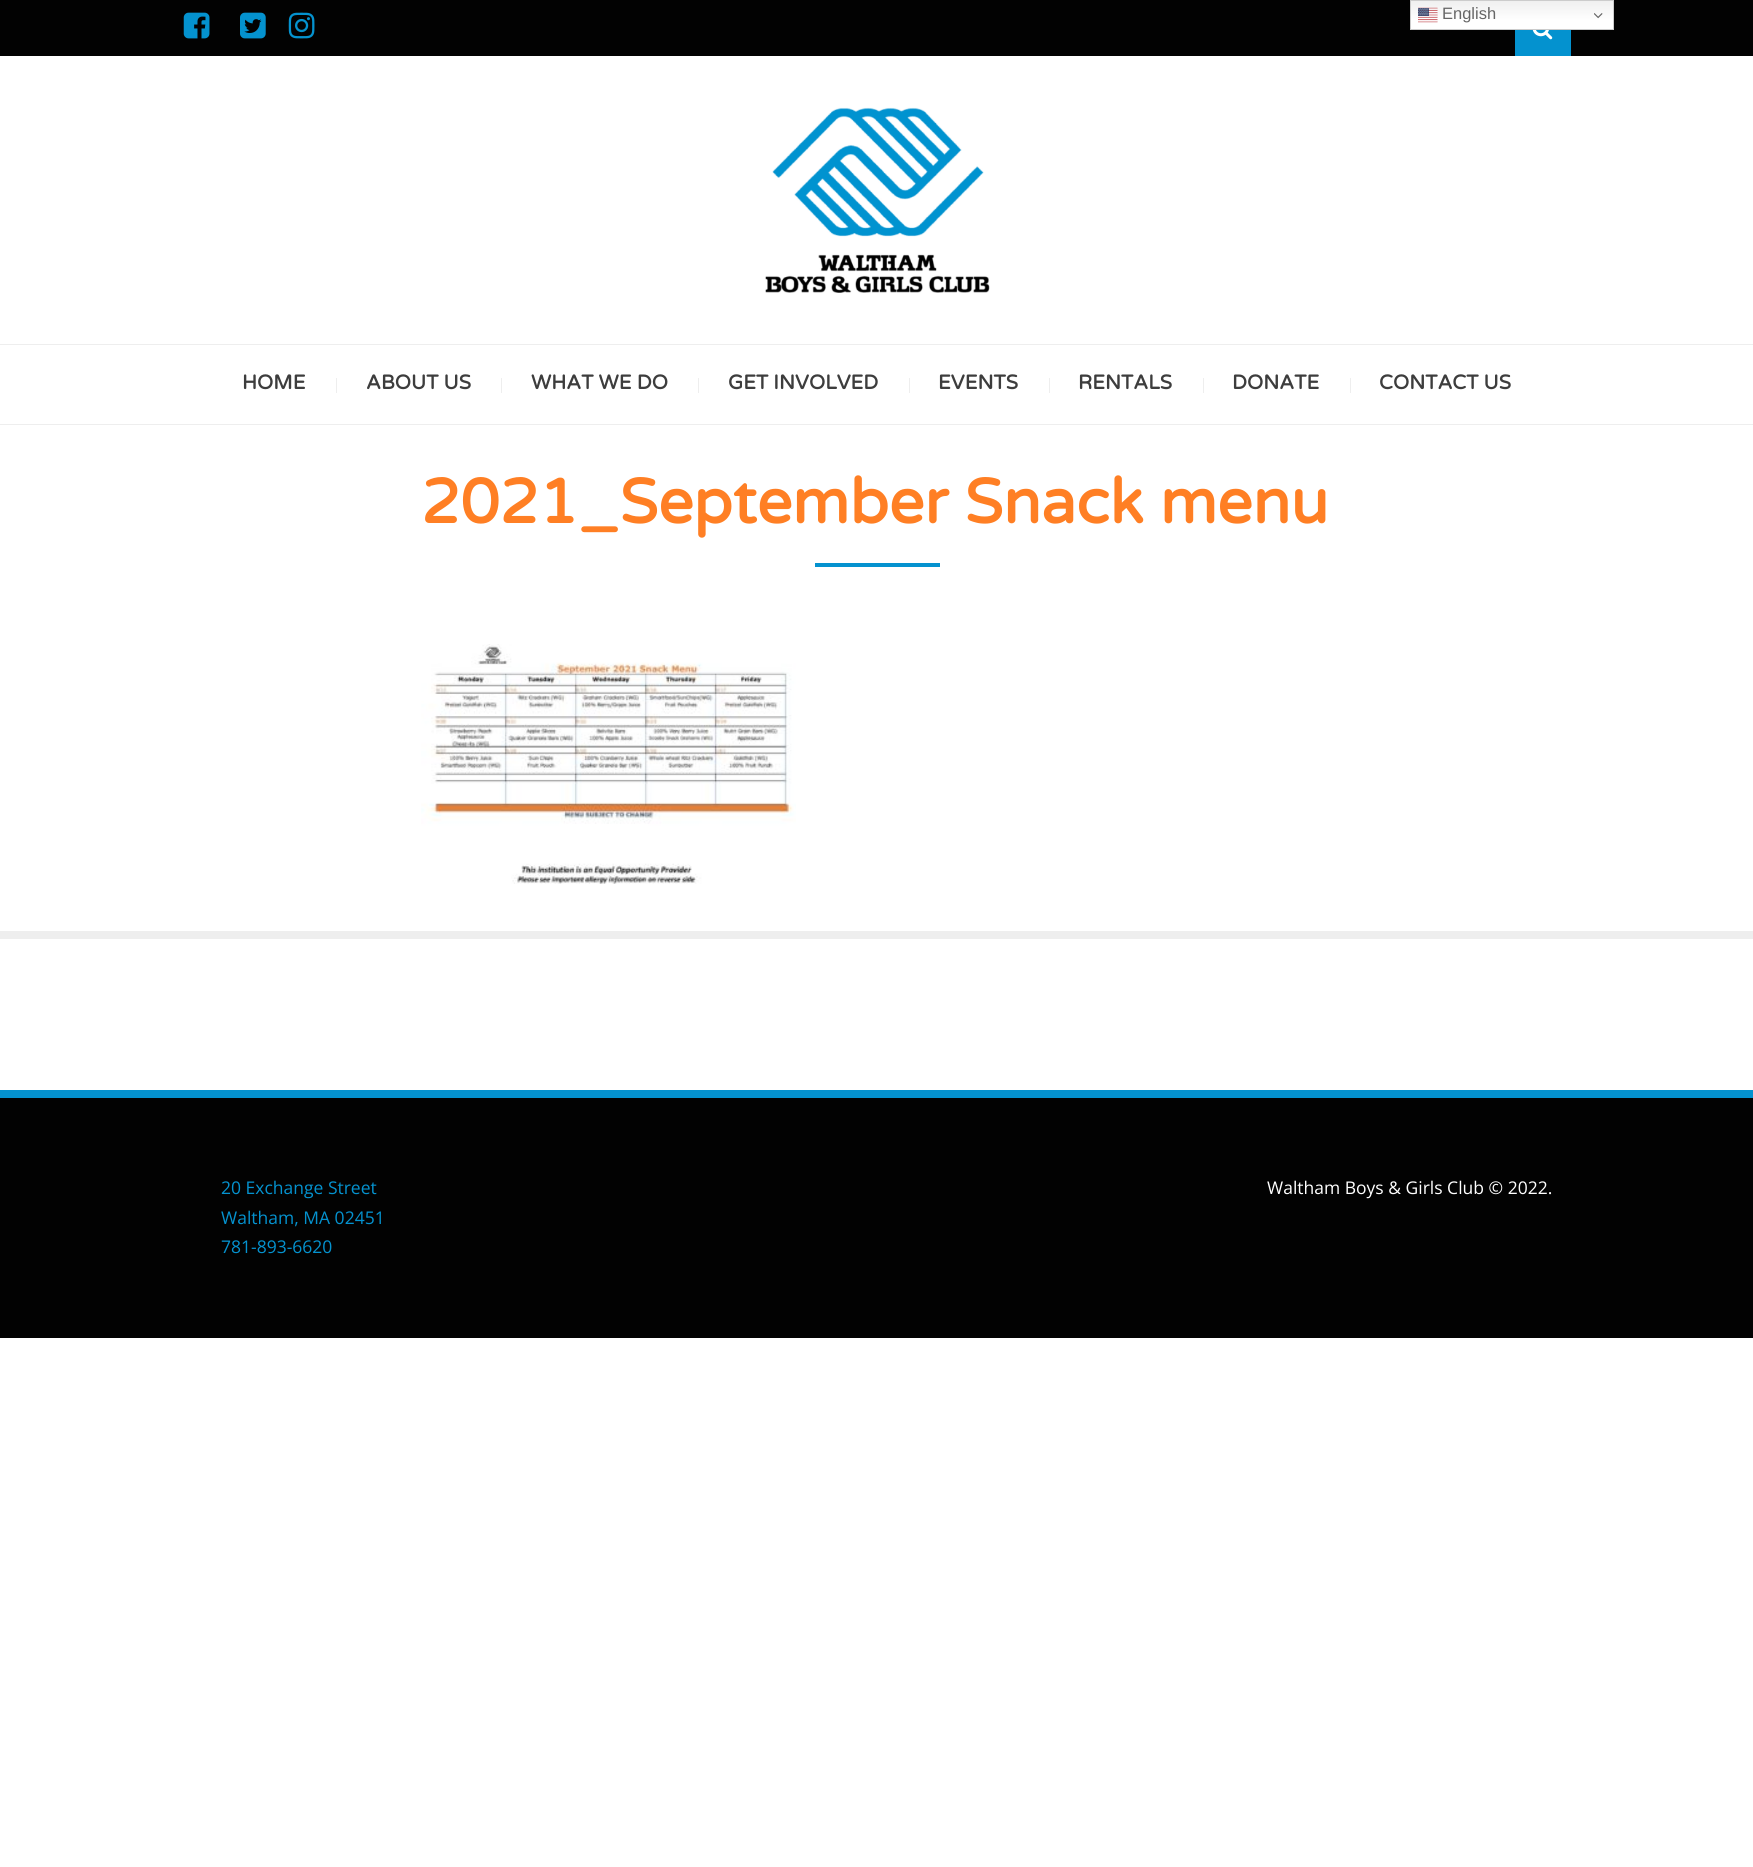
#include <cairo.h>
#include <math.h>
#include <stddef.h>


static void rgb(cairo_t *cr, int r, int g, int b)
{
	cairo_set_source_rgb(cr, r / 255.0, g / 255.0, b / 255.0);
}

static void face(cairo_t *cr, const char *family, double size, int italic, int bold)
{
	cairo_select_font_face(cr, family, italic ? CAIRO_FONT_SLANT_ITALIC : CAIRO_FONT_SLANT_NORMAL,
		bold ? CAIRO_FONT_WEIGHT_BOLD : CAIRO_FONT_WEIGHT_NORMAL);
	cairo_set_font_size(cr, size);
}

static void label(cairo_t *cr, double x, double y, const char *s)
{
	cairo_move_to(cr, x, y);
	cairo_show_text(cr, s);
}

static void rect(cairo_t *cr, double x, double y, double w, double h)
{
	cairo_rectangle(cr, x, y, w, h);
	cairo_fill(cr);
}

static void image(cairo_t *cr, const char *path, double x, double y, double w, double h)
{
	cairo_surface_t *image = cairo_image_surface_create_from_png(path);
	cairo_save(cr);
	cairo_set_source_surface(cr, image, x, y);
	cairo_rectangle(cr, x, y, w, h);
	cairo_fill(cr);
	cairo_restore(cr);
	cairo_surface_destroy(image);
}

static void draw(cairo_t *cr) {
	cairo_pattern_t *gradient;
	rgb(cr, 255, 255, 255);
	cairo_paint(cr);
	rgb(cr, 2, 2, 2);
	rect(cr, 0, 0, 1753, 56);
	gradient = cairo_pattern_create_linear(1512, 0, 1512, 30);
	cairo_pattern_add_color_stop_rgba(gradient, 0, 0.937, 0.937, 0.937, 1);
	cairo_pattern_add_color_stop_rgba(gradient, 0.7, 1, 1, 1, 1);
	cairo_set_source(cr, gradient);
	cairo_pattern_destroy(gradient);
	rect(cr, 1411, 1, 202, 28);
	cairo_rectangle(cr, 1410.5, 0.5, 203, 29);
	rgb(cr, 204, 204, 204);
	cairo_set_line_width(cr, 1);
	cairo_stroke(cr);
	image(cr, "image0.png", 1418, 7, 20, 16);
	face(cr, "Liberation Sans", 16.5, 0, 0);
	rgb(cr, 102, 102, 102);
	label(cr, 1442, 19, "English");
	image(cr, "image1.png", 1594, 13, 9, 6);
	image(cr, "image2.png", 183, 12, 27, 27);
	image(cr, "image3.png", 240, 12, 26, 27);
	image(cr, "image4.png", 288, 12, 27, 27);
	rgb(cr, 4, 146, 207);
	rect(cr, 1515, 30, 56, 26);
	image(cr, "image5.png", 1532, 30, 21, 10);
	image(cr, "image6.png", 765, 107, 225, 186);
	rgb(cr, 238, 238, 238);
	rect(cr, 0, 344, 1753, 1);
	rect(cr, 0, 424, 1753, 1);
	face(cr, "Varela Round", 20, 0, 1);
	rgb(cr, 61, 61, 61);
	label(cr, 242, 389, "HOME");
	rgb(cr, 238, 238, 238);
	rect(cr, 336, 378, 1, 15);
	rgb(cr, 61, 61, 61);
	label(cr, 366, 389, "ABOUT US");
	rgb(cr, 238, 238, 238);
	rect(cr, 501, 378, 1, 15);
	rgb(cr, 61, 61, 61);
	label(cr, 531, 389, "WHAT WE DO");
	rgb(cr, 238, 238, 238);
	rect(cr, 698, 378, 1, 15);
	rgb(cr, 61, 61, 61);
	label(cr, 728, 389, "GET INVOLVED");
	rgb(cr, 238, 238, 238);
	rect(cr, 909, 378, 1, 15);
	rgb(cr, 61, 61, 61);
	label(cr, 938, 389, "EVENTS");
	rgb(cr, 238, 238, 238);
	rect(cr, 1049, 378, 1, 15);
	rgb(cr, 61, 61, 61);
	label(cr, 1078, 389, "RENTALS");
	rgb(cr, 238, 238, 238);
	rect(cr, 1203, 378, 1, 15);
	rgb(cr, 61, 61, 61);
	label(cr, 1232, 389, "DONATE");
	rgb(cr, 238, 238, 238);
	rect(cr, 1350, 378, 1, 15);
	rgb(cr, 61, 61, 61);
	label(cr, 1379, 389, "CONTACT US");
	face(cr, "Varela Round", 62.5, 0, 1);
	rgb(cr, 255, 127, 36);
	label(cr, 421, 523, "2021_September Snack menu");
	rgb(cr, 4, 146, 207);
	rect(cr, 815, 563, 125, 4);
	image(cr, "image7.png", 421, 644, 375, 240);
	rgb(cr, 238, 238, 238);
	rect(cr, 0, 931, 1753, 8);
	rgb(cr, 2, 2, 2);
	rect(cr, 0, 1098, 1753, 240);
	rgb(cr, 4, 146, 207);
	rect(cr, 0, 1090, 1753, 8);
	face(cr, "Open Sans", 17.5, 0, 0);
	label(cr, 221, 1194, "20 Exchange Street");
	label(cr, 221, 1224, "Waltham, MA 02451");
	label(cr, 221, 1253, "781-893-6620");
	rgb(cr, 255, 255, 255);
	label(cr, 1267, 1194, "Waltham Boys & Girls Club © 2022.");
}

int main(void) {
	cairo_surface_t *surface = cairo_image_surface_create(CAIRO_FORMAT_RGB24, 1753, 1867);
	cairo_t *cr = cairo_create(surface);
	cairo_font_options_t *options = cairo_font_options_create();
	cairo_font_options_set_hint_metrics(options, CAIRO_HINT_METRICS_OFF);
	cairo_font_options_set_hint_style(options, CAIRO_HINT_STYLE_NONE);
	cairo_set_font_options(cr, options);
	cairo_set_miter_limit(cr, 4);
	draw(cr);
	cairo_surface_write_to_png(surface, "render.png");
	cairo_font_options_destroy(options);
	cairo_destroy(cr);
	cairo_surface_destroy(surface);
	return 0;
}
